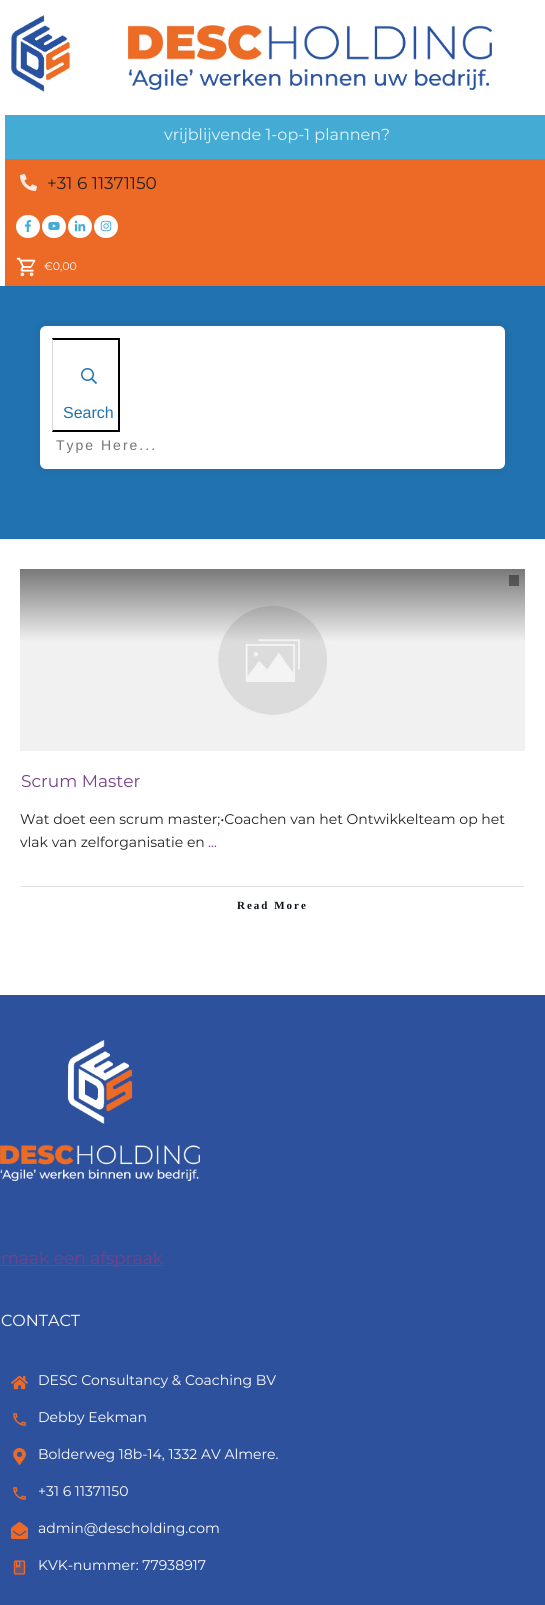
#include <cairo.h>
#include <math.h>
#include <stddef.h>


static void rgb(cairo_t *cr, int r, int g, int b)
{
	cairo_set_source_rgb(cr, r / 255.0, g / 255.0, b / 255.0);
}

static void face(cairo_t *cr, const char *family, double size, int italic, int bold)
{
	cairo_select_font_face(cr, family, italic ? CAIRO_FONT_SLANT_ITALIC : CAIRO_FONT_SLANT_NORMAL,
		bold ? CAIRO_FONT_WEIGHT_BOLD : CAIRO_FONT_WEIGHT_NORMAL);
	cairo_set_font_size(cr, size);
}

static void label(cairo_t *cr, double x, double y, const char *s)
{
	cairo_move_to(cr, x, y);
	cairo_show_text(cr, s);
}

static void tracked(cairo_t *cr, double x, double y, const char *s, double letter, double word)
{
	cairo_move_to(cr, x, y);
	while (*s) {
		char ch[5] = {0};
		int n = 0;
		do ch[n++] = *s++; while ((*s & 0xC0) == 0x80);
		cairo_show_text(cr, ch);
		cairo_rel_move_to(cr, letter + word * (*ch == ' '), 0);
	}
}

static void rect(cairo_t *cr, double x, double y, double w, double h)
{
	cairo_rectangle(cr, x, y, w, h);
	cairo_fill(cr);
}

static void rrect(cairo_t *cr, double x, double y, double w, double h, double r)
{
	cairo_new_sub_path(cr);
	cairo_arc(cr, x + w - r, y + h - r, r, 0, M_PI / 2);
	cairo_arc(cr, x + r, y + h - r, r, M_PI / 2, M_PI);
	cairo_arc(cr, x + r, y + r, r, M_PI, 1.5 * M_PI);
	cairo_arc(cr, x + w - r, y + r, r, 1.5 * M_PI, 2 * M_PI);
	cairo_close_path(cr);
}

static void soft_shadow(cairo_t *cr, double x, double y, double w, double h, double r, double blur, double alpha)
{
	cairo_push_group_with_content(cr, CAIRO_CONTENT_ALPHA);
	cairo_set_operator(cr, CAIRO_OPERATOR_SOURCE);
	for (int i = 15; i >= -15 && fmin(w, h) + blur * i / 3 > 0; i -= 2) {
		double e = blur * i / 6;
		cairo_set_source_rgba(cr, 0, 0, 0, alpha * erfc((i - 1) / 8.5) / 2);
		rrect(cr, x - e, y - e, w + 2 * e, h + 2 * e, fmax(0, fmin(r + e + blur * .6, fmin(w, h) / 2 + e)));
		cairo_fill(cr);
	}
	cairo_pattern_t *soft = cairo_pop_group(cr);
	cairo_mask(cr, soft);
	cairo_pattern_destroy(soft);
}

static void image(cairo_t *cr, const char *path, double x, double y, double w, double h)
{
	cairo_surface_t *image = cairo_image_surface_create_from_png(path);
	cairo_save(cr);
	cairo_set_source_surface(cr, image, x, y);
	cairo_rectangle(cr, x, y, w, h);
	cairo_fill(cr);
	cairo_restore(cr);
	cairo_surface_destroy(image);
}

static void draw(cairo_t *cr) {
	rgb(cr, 255, 255, 255);
	cairo_paint(cr);
	image(cr, "image0.png", 11, 15, 59, 77);
	image(cr, "image1.png", 128, 25, 364, 65);
	rgb(cr, 68, 171, 212);
	rect(cr, 5, 115, 540, 44);
	face(cr, "Montserrat", 16, 0, 0);
	rgb(cr, 227, 242, 249);
	label(cr, 164, 140, "vrijblijvende 1-op-1 plannen?");
	rgb(cr, 237, 105, 38);
	rect(cr, 5, 159, 540, 127);
	image(cr, "image2.png", 20, 174, 17, 17);
	face(cr, "Montserrat", 17, 0, 0);
	rgb(cr, 34, 34, 34);
	label(cr, 47, 189, "+31 6 11371150");
	rgb(cr, 255, 255, 255);
	rrect(cr, 16, 215, 24, 23, 11.5);
	cairo_fill(cr);
	image(cr, "image3.png", 24, 220, 8, 12);
	rrect(cr, 42, 215, 24, 23, 11.5);
	cairo_fill(cr);
	image(cr, "image4.png", 48, 222, 12, 8);
	rrect(cr, 68, 215, 24, 23, 11.5);
	cairo_fill(cr);
	image(cr, "image5.png", 74, 220, 12, 12);
	rrect(cr, 94, 215, 24, 23, 11.5);
	cairo_fill(cr);
	image(cr, "image6.png", 100, 220, 12, 12);
	image(cr, "image7.png", 16, 257, 20, 20);
	face(cr, "Montserrat", 11, 0, 0);
	label(cr, 44, 270, "€0,00");
	rgb(cr, 33, 114, 176);
	rect(cr, 0, 286, 545, 253);
	rgb(cr, 0, 0, 0);
	soft_shadow(cr, 40, 326, 465, 143, 6, 5.5, 0.08);
	rgb(cr, 255, 255, 255);
	rrect(cr, 40, 326, 465, 143, 6);
	cairo_fill(cr);
	rgb(cr, 0, 0, 0);
	cairo_new_path(cr);
	cairo_move_to(cr, 52, 338);
	cairo_line_to(cr, 120, 338);
	cairo_line_to(cr, 118, 340);
	cairo_line_to(cr, 53, 340);
	cairo_close_path(cr);
	cairo_fill(cr);
	rect(cr, 118, 338, 2, 94);
	cairo_new_path(cr);
	cairo_move_to(cr, 120, 432);
	cairo_line_to(cr, 52, 432);
	cairo_line_to(cr, 53, 430);
	cairo_line_to(cr, 118, 430);
	cairo_close_path(cr);
	cairo_fill(cr);
	cairo_set_source_rgba(cr, 0, 0, 0, 0.16);
	cairo_new_path(cr);
	cairo_move_to(cr, 52, 432);
	cairo_line_to(cr, 52, 338);
	cairo_line_to(cr, 53, 340);
	cairo_line_to(cr, 53, 430);
	cairo_close_path(cr);
	cairo_fill(cr);
	image(cr, "image8.png", 81, 368, 16, 16);
	face(cr, "Liberation Sans", 16, 0, 0);
	rgb(cr, 33, 114, 176);
	label(cr, 63, 418, "Search");
	face(cr, "Liberation Sans", 14, 0, 0);
	rgb(cr, 117, 117, 117);
	tracked(cr, 56, 450, "Type Here...", 2, 0);
	image(cr, "image9.png", 20, 569, 505, 182);
	cairo_set_source_rgba(cr, 0, 0, 0, 0.4);
	rect(cr, 509, 575, 10, 11);
	face(cr, "Montserrat", 17, 0, 0);
	rgb(cr, 117, 65, 134);
	label(cr, 21, 787, "Scrum Master");
	face(cr, "Montserrat", 14, 0, 0);
	rgb(cr, 34, 34, 34);
	label(cr, 20, 824, "Wat doet een scrum master;•Coachen van het Ontwikkelteam op het");
	label(cr, 20, 847, "vlak van zelforganisatie en");
	rgb(cr, 117, 65, 134);
	label(cr, 208, 847, "...");
	rgb(cr, 224, 224, 224);
	rect(cr, 21, 886, 503, 1);
	face(cr, "Liberation Serif", 11, 0, 1);
	rgb(cr, 12, 17, 21);
	tracked(cr, 237, 909, "Read More", 2, 0);
	rgb(cr, 46, 81, 158);
	rect(cr, 0, 995, 545, 610);
	image(cr, "image10.png", 0, 1040, 200, 141);
	rgb(cr, 117, 65, 134);
	rect(cr, 1, 1265, 162, 1);
	face(cr, "Montserrat", 17, 0, 0);
	label(cr, 1, 1264, "maak een afspraak");
	face(cr, "Montserrat", 16, 0, 0);
	rgb(cr, 255, 255, 255);
	label(cr, 1, 1326, "CONTACT");
	image(cr, "image11.png", 11, 1375, 17, 15);
	face(cr, "Montserrat", 14, 0, 0);
	label(cr, 38, 1385, "DESC Consultancy & Coaching BV");
	image(cr, "image12.png", 13, 1413, 13, 13);
	label(cr, 38, 1422, "Debby Eekman");
	image(cr, "image13.png", 13, 1448, 13, 17);
	label(cr, 38, 1459, "Bolderweg 18b-14, 1332 AV Almere.");
	image(cr, "image12.png", 13, 1487, 13, 13);
	label(cr, 38, 1496, "+31 6 11371150");
	image(cr, "image14.png", 11, 1522, 17, 17);
	label(cr, 38, 1533, "admin@descholding.com");
	image(cr, "image15.png", 13, 1560, 13, 15);
	label(cr, 38, 1570, "KVK-nummer: 77938917");
}

int main(void) {
	cairo_surface_t *surface = cairo_image_surface_create(CAIRO_FORMAT_RGB24, 545, 1605);
	cairo_t *cr = cairo_create(surface);
	cairo_font_options_t *options = cairo_font_options_create();
	cairo_font_options_set_hint_metrics(options, CAIRO_HINT_METRICS_OFF);
	cairo_font_options_set_hint_style(options, CAIRO_HINT_STYLE_NONE);
	cairo_set_font_options(cr, options);
	cairo_set_miter_limit(cr, 4);
	draw(cr);
	cairo_surface_write_to_png(surface, "render.png");
	cairo_font_options_destroy(options);
	cairo_destroy(cr);
	cairo_surface_destroy(surface);
	return 0;
}
